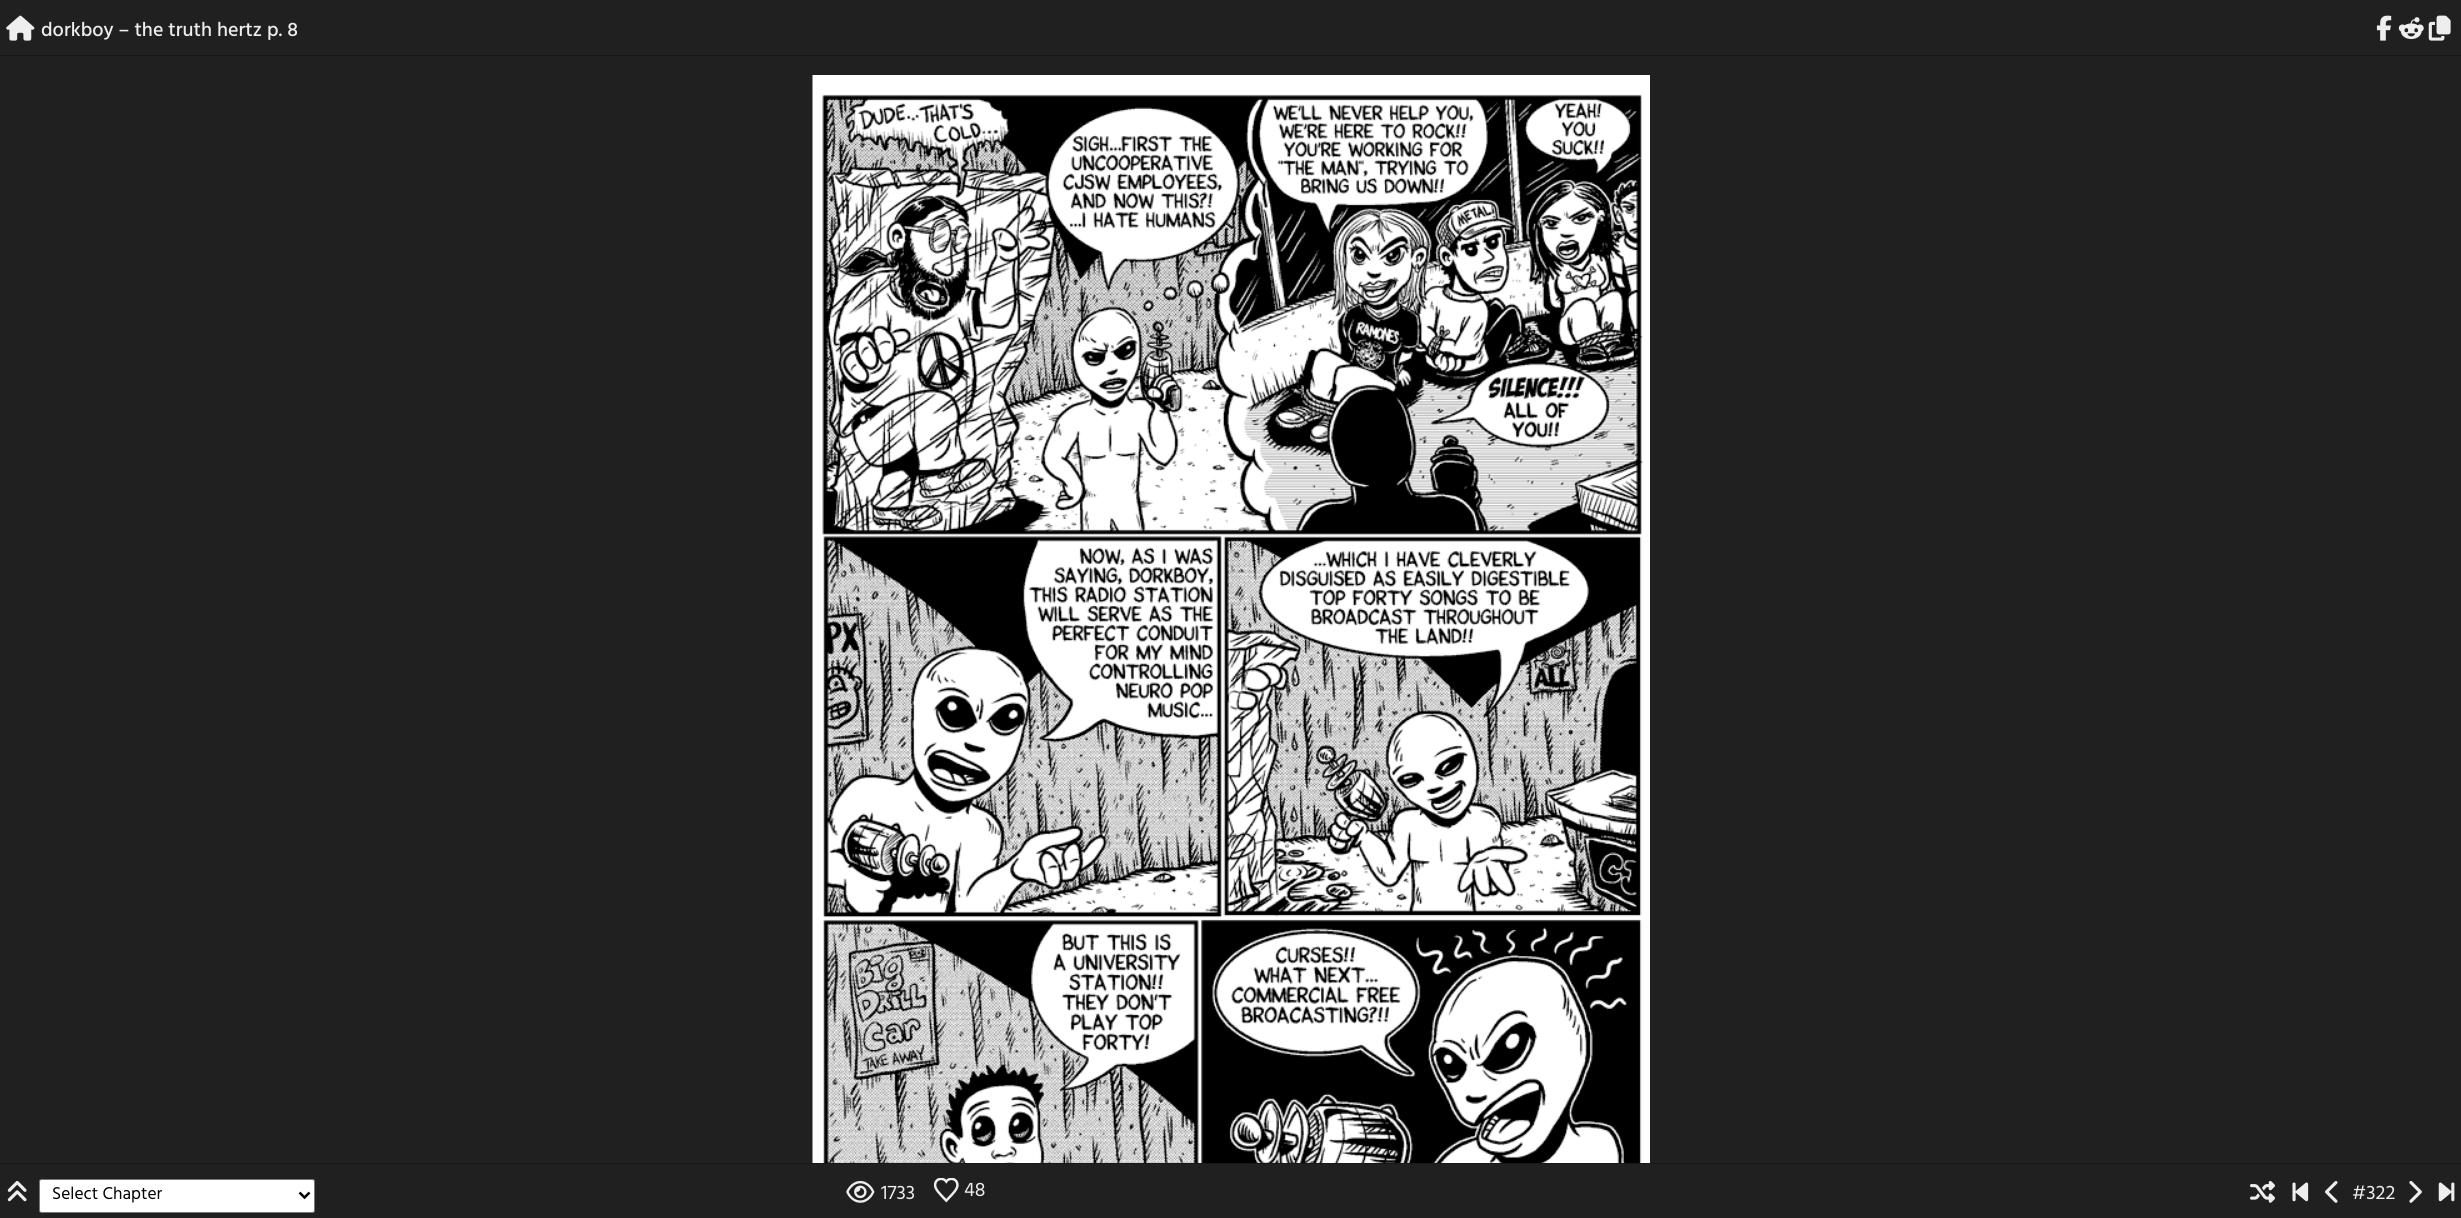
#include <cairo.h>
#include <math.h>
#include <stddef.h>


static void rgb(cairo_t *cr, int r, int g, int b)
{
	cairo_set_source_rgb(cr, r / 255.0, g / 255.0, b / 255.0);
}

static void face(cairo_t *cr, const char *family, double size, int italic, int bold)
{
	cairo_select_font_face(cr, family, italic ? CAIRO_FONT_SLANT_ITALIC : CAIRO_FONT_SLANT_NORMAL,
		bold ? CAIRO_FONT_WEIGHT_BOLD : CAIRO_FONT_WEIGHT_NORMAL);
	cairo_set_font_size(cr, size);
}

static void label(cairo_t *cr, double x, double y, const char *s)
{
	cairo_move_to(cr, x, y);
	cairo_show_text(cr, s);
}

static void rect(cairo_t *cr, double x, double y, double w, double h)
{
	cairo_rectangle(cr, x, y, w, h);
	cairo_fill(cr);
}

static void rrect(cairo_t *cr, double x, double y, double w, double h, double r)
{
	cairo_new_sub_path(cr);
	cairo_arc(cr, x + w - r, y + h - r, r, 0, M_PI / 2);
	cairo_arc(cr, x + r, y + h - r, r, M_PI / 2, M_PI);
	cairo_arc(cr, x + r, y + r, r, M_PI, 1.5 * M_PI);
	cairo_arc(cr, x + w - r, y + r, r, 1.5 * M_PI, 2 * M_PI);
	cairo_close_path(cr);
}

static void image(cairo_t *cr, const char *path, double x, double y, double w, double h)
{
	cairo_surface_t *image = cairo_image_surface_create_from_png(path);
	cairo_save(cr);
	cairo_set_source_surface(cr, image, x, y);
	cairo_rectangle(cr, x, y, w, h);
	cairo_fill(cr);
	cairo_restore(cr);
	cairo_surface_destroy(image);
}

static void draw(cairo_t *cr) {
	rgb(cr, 32, 32, 32);
	cairo_paint(cr);
	rgb(cr, 24, 24, 24);
	rect(cr, 0, 55, 2461, 1);
	image(cr, "image0.png", 6, 15, 29, 26);
	face(cr, "Hind Medium", 20, 0, 0);
	rgb(cr, 238, 238, 238);
	label(cr, 41, 36, "dorkboy – the truth hertz p. 8");
	image(cr, "image1.png", 2376, 15, 16, 26);
	image(cr, "image2.png", 2398, 17, 26, 23);
	image(cr, "image3.png", 2428, 15, 23, 26);
	image(cr, "image4.png", 812, 75, 838, 1088);
	rgb(cr, 24, 24, 24);
	rect(cr, 0, 1163, 2461, 1);
	image(cr, "image5.png", 7, 1181, 20, 21);
	rgb(cr, 255, 255, 255);
	rrect(cr, 39.5, 1179.5, 275, 33, 2);
	cairo_fill_preserve(cr);
	rgb(cr, 118, 118, 118);
	cairo_set_line_width(cr, 1);
	cairo_stroke(cr);
	cairo_new_path(cr);
	cairo_move_to(cr, 299.5, 1192.5);
	cairo_line_to(cr, 304.5, 1197.5);
	cairo_line_to(cr, 309.5, 1192.5);
	rgb(cr, 0, 0, 0);
	cairo_set_line_width(cr, 2.5);
	cairo_stroke(cr);
	face(cr, "Hind", 17.5, 0, 0);
	label(cr, 52, 1199, "Select Chapter");
	image(cr, "image6.png", 846, 1180, 29, 23);
	face(cr, "Hind", 20, 0, 0);
	rgb(cr, 238, 238, 238);
	label(cr, 881, 1199, "1733");
	image(cr, "image7.png", 934, 1178, 25, 25);
	label(cr, 964, 1196, "48");
	image(cr, "image8.png", 2250, 1181, 25, 22);
	image(cr, "image9.png", 2292, 1182, 17, 20);
	image(cr, "image10.png", 2325, 1181, 13, 22);
	label(cr, 2352, 1199, "#322");
	image(cr, "image11.png", 2409, 1181, 13, 22);
	image(cr, "image12.png", 2438, 1182, 17, 20);
}

int main(void) {
	cairo_surface_t *surface = cairo_image_surface_create(CAIRO_FORMAT_RGB24, 2461, 1218);
	cairo_t *cr = cairo_create(surface);
	cairo_font_options_t *options = cairo_font_options_create();
	cairo_font_options_set_hint_metrics(options, CAIRO_HINT_METRICS_OFF);
	cairo_font_options_set_hint_style(options, CAIRO_HINT_STYLE_NONE);
	cairo_set_font_options(cr, options);
	cairo_set_miter_limit(cr, 4);
	draw(cr);
	cairo_surface_write_to_png(surface, "render.png");
	cairo_font_options_destroy(options);
	cairo_destroy(cr);
	cairo_surface_destroy(surface);
	return 0;
}
